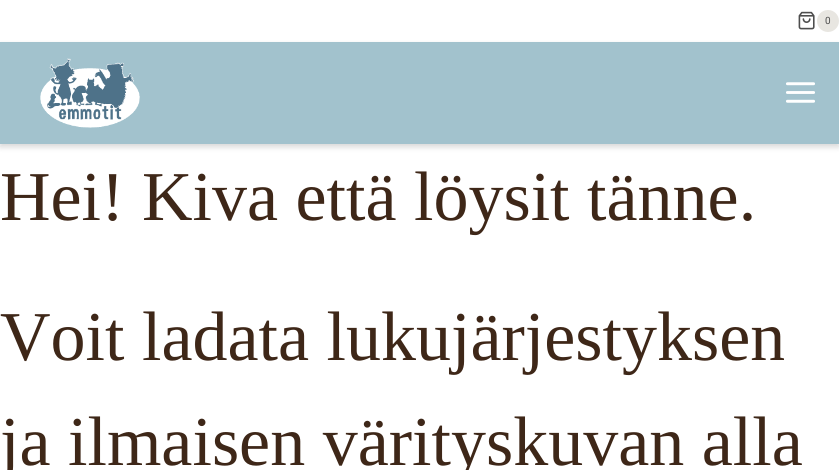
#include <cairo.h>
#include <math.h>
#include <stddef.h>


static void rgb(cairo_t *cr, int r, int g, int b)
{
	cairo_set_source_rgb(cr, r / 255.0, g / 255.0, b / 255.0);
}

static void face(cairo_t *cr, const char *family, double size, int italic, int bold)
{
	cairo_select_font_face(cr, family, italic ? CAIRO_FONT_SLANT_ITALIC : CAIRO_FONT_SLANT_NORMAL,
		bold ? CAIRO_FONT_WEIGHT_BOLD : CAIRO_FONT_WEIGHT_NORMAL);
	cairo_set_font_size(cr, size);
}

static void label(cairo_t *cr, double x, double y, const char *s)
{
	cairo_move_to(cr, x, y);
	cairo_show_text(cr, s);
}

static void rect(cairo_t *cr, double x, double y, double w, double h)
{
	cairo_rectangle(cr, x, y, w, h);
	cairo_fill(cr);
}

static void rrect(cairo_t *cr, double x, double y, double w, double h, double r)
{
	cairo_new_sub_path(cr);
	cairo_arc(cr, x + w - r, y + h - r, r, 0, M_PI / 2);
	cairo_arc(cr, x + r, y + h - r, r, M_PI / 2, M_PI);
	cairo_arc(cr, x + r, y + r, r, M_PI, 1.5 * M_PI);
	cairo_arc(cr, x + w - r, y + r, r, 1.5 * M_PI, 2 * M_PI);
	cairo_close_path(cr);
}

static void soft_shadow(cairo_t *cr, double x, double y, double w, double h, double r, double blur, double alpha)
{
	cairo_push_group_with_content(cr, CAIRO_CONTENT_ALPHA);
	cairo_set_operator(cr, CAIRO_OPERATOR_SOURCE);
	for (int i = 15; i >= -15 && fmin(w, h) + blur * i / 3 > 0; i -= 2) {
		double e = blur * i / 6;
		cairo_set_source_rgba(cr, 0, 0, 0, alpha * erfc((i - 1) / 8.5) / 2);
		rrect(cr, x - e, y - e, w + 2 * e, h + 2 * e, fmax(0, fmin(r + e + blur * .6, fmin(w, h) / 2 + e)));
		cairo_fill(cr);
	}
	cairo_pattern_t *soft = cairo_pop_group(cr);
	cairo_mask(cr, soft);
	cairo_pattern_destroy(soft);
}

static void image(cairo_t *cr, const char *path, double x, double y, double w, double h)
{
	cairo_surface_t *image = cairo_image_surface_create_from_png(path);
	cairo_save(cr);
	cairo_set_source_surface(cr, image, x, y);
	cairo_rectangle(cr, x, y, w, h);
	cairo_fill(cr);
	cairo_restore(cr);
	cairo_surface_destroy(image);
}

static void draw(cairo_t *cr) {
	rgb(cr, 255, 255, 255);
	cairo_paint(cr);
	image(cr, "image0.png", 798, 11, 17, 19);
	rgb(cr, 232, 230, 225);
	cairo_arc(cr, 828, 21, 11, 0, 2 * M_PI);
	cairo_fill(cr);
	face(cr, "Roboto", 10, 0, 0);
	rgb(cr, 78, 78, 78);
	label(cr, 825, 24, "0");
	rgb(cr, 0, 0, 0);
	soft_shadow(cr, 0, 45, 839, 102, 0, 3, 0.16);
	rgb(cr, 162, 194, 205);
	rect(cr, 0, 42, 839, 102);
	image(cr, "image1.png", 40, 58, 100, 70);
	image(cr, "image2.png", 786, 82, 29, 21);
	face(cr, "Liberation Serif", 70, 0, 0);
	rgb(cr, 62, 39, 24);
	label(cr, 0, 220, "Hei! Kiva että löysit tänne.");
	label(cr, 0, 360, "Voit ladata lukujärjestyksen");
	label(cr, 0, 465, "ja ilmaisen värityskuvan alla");
}

int main(void) {
	cairo_surface_t *surface = cairo_image_surface_create(CAIRO_FORMAT_RGB24, 839, 470);
	cairo_t *cr = cairo_create(surface);
	cairo_font_options_t *options = cairo_font_options_create();
	cairo_font_options_set_hint_metrics(options, CAIRO_HINT_METRICS_OFF);
	cairo_font_options_set_hint_style(options, CAIRO_HINT_STYLE_NONE);
	cairo_set_font_options(cr, options);
	cairo_set_miter_limit(cr, 4);
	draw(cr);
	cairo_surface_write_to_png(surface, "render.png");
	cairo_font_options_destroy(options);
	cairo_destroy(cr);
	cairo_surface_destroy(surface);
	return 0;
}
